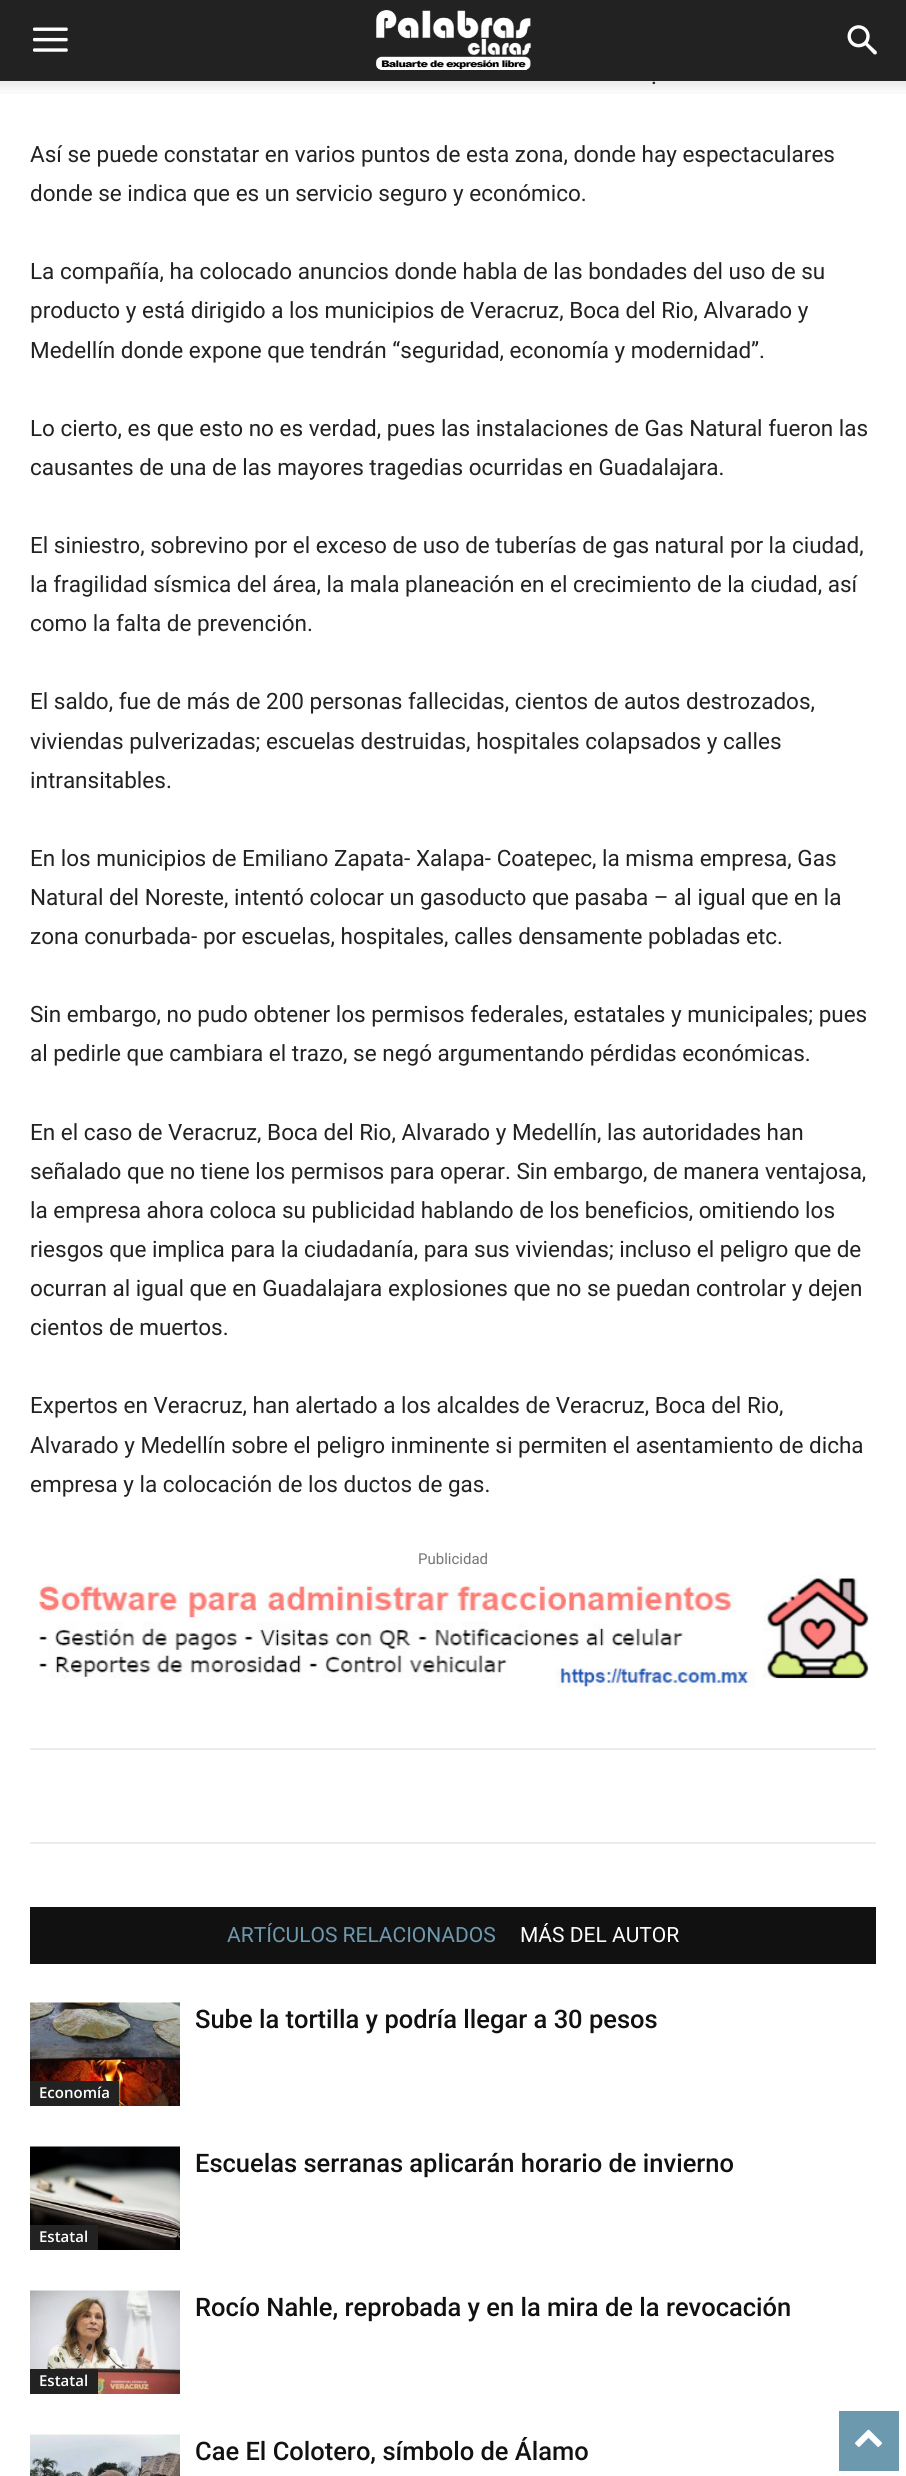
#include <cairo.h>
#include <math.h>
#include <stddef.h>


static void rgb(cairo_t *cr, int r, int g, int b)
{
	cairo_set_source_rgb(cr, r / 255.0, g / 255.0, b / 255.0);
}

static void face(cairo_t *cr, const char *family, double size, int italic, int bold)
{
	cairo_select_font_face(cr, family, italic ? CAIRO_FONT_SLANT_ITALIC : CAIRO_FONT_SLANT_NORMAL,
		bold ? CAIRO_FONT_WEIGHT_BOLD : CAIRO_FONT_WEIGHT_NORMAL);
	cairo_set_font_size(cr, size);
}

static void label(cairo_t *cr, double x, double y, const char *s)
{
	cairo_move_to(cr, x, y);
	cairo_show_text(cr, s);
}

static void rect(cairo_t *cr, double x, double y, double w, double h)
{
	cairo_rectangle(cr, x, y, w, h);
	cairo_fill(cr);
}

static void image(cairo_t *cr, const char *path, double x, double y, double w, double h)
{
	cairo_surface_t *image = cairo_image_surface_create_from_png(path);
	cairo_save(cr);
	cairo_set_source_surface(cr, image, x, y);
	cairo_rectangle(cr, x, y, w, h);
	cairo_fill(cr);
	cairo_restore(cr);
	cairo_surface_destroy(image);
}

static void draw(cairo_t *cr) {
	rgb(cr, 255, 255, 255);
	cairo_paint(cr);
	rgb(cr, 34, 34, 34);
	rect(cr, 0, 0, 906, 81);
	image(cr, "image0.png", 33, 27, 35, 25);
	image(cr, "image1.png", 376, 10, 155, 60);
	image(cr, "image2.png", 847, 25, 30, 30);
	face(cr, "Roboto", 22.5, 0, 0);
	label(cr, 651, 84, ".");
	image(cr, "image3.png", 0, 81, 906, 13);
	label(cr, 30, 162, "Así se puede constatar en varios puntos de esta zona, donde hay espectaculares");
	label(cr, 30, 201, "donde se indica que es un servicio seguro y económico.");
	label(cr, 30, 279, "La compañía, ha colocado anuncios donde habla de las bondades del uso de su");
	label(cr, 30, 318, "producto y está dirigido a los municipios de Veracruz, Boca del Rio, Alvarado y");
	label(cr, 30, 358, "Medellín donde expone que tendrán “seguridad, economía y modernidad”.");
	label(cr, 30, 436, "Lo cierto, es que esto no es verdad, pues las instalaciones de Gas Natural fueron las");
	label(cr, 30, 475, "causantes de una de las mayores tragedias ocurridas en Guadalajara.");
	label(cr, 30, 553, "El siniestro, sobrevino por el exceso de uso de tuberías de gas natural por la ciudad,");
	label(cr, 30, 592, "la fragilidad sísmica del área, la mala planeación en el crecimiento de la ciudad, así");
	label(cr, 30, 631, "como la falta de prevención.");
	label(cr, 30, 709, "El saldo, fue de más de 200 personas fallecidas, cientos de autos destrozados,");
	label(cr, 30, 749, "viviendas pulverizadas; escuelas destruidas, hospitales colapsados y calles");
	label(cr, 30, 788, "intransitables.");
	label(cr, 30, 866, "En los municipios de Emiliano Zapata- Xalapa- Coatepec, la misma empresa, Gas");
	label(cr, 30, 905, "Natural del Noreste, intentó colocar un gasoducto que pasaba – al igual que en la");
	label(cr, 30, 944, "zona conurbada- por escuelas, hospitales, calles densamente pobladas etc.");
	label(cr, 30, 1022, "Sin embargo, no pudo obtener los permisos federales, estatales y municipales; pues");
	label(cr, 30, 1061, "al pedirle que cambiara el trazo, se negó argumentando pérdidas económicas.");
	label(cr, 30, 1140, "En el caso de Veracruz, Boca del Rio, Alvarado y Medellín, las autoridades han");
	label(cr, 30, 1179, "señalado que no tiene los permisos para operar. Sin embargo, de manera ventajosa,");
	label(cr, 30, 1218, "la empresa ahora coloca su publicidad hablando de los beneficios, omitiendo los");
	label(cr, 30, 1257, "riesgos que implica para la ciudadanía, para sus viviendas; incluso el peligro que de");
	label(cr, 30, 1296, "ocurran al igual que en Guadalajara explosiones que no se puedan controlar y dejen");
	label(cr, 30, 1335, "cientos de muertos.");
	label(cr, 30, 1413, "Expertos en Veracruz, han alertado a los alcaldes de Veracruz, Boca del Rio,");
	label(cr, 30, 1453, "Alvarado y Medellín sobre el peligro inminente si permiten el asentamiento de dicha");
	label(cr, 30, 1492, "empresa y la colocación de los ductos de gas.");
	face(cr, "Roboto", 15, 0, 0);
	rgb(cr, 118, 118, 118);
	label(cr, 418, 1564, "Publicidad");
	image(cr, "image4.png", 39, 1575, 830, 113);
	rgb(cr, 237, 237, 237);
	rect(cr, 30, 1748, 846, 2);
	rect(cr, 30, 1842, 846, 2);
	rgb(cr, 17, 17, 17);
	rect(cr, 30, 1907, 846, 57);
	face(cr, "Roboto", 21, 0, 0);
	rgb(cr, 109, 153, 175);
	label(cr, 227, 1942, "ARTÍCULOS RELACIONADOS");
	rgb(cr, 255, 255, 255);
	label(cr, 520, 1942, "MÁS DEL AUTOR");
	face(cr, "Roboto Medium", 25.5, 0, 0);
	rgb(cr, 17, 17, 17);
	label(cr, 195, 2028, "Sube la tortilla y podría llegar a 30 pesos");
	image(cr, "image5.png", 30, 2002, 150, 104);
	rgb(cr, 34, 34, 34);
	rect(cr, 30, 2081, 89, 25);
	face(cr, "Open Sans SemiBold", 15, 0, 0);
	rgb(cr, 255, 255, 255);
	label(cr, 39, 2098, "Economía");
	face(cr, "Roboto Medium", 25.5, 0, 0);
	rgb(cr, 17, 17, 17);
	label(cr, 195, 2172, "Escuelas serranas aplicarán horario de invierno");
	image(cr, "image6.png", 30, 2146, 150, 104);
	rgb(cr, 34, 34, 34);
	rect(cr, 30, 2225, 68, 25);
	face(cr, "Open Sans SemiBold", 15, 0, 0);
	rgb(cr, 255, 255, 255);
	label(cr, 39, 2242, "Estatal");
	face(cr, "Roboto Medium", 25.5, 0, 0);
	rgb(cr, 17, 17, 17);
	label(cr, 195, 2316, "Rocío Nahle, reprobada y en la mira de la revocación");
	image(cr, "image7.png", 30, 2290, 150, 104);
	rgb(cr, 34, 34, 34);
	rect(cr, 30, 2369, 68, 25);
	face(cr, "Open Sans SemiBold", 15, 0, 0);
	rgb(cr, 255, 255, 255);
	label(cr, 39, 2386, "Estatal");
	image(cr, "image8.png", 30, 2434, 150, 42);
	face(cr, "Roboto Medium", 25.5, 0, 0);
	rgb(cr, 17, 17, 17);
	label(cr, 195, 2460, "Cae El Colotero, símbolo de Álamo");
	rgb(cr, 109, 153, 175);
	rect(cr, 839, 2411, 60, 60);
	image(cr, "image9.png", 855, 2429, 27, 18);
}

int main(void) {
	cairo_surface_t *surface = cairo_image_surface_create(CAIRO_FORMAT_RGB24, 906, 2476);
	cairo_t *cr = cairo_create(surface);
	cairo_font_options_t *options = cairo_font_options_create();
	cairo_font_options_set_hint_metrics(options, CAIRO_HINT_METRICS_OFF);
	cairo_font_options_set_hint_style(options, CAIRO_HINT_STYLE_NONE);
	cairo_set_font_options(cr, options);
	cairo_set_miter_limit(cr, 4);
	draw(cr);
	cairo_surface_write_to_png(surface, "render.png");
	cairo_font_options_destroy(options);
	cairo_destroy(cr);
	cairo_surface_destroy(surface);
	return 0;
}
